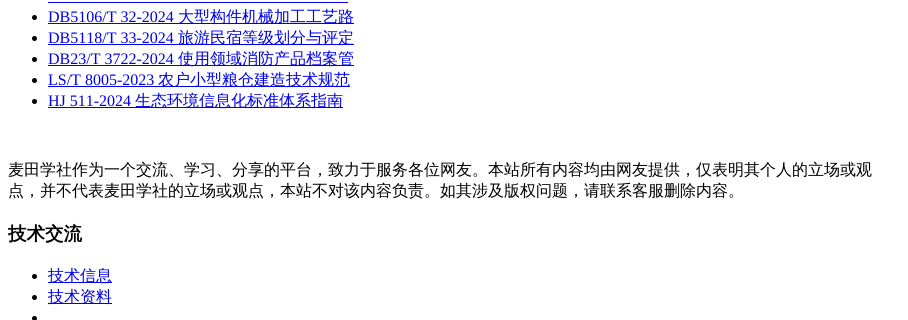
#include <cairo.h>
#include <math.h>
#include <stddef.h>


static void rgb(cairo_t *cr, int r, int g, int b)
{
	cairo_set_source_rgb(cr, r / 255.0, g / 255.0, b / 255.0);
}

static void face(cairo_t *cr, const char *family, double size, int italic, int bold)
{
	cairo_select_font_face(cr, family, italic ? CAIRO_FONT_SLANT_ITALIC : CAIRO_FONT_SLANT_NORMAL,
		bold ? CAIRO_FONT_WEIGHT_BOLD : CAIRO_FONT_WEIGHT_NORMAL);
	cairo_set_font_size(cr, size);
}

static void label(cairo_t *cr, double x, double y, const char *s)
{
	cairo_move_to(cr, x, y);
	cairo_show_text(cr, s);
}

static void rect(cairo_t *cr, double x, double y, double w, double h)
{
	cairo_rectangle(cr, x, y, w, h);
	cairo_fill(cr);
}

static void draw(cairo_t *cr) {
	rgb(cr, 255, 255, 255);
	cairo_paint(cr);
	rgb(cr, 0, 0, 238);
	rect(cr, 48, 2, 300, 1);
	rgb(cr, 0, 0, 0);
	cairo_arc(cr, 34.5, 17.5, 2.5, 0, 2 * M_PI);
	cairo_fill(cr);
	face(cr, "Liberation Serif", 16, 0, 0);
	rgb(cr, 0, 0, 238);
	label(cr, 48, 22, "DB5106/T 32-2024");
	rect(cr, 48, 23, 306, 1);
	face(cr, "WenQuanYi Zen Hei Medium", 16, 0, 0);
	label(cr, 178, 22, "大型构件机械加工工艺路");
	rgb(cr, 0, 0, 0);
	cairo_new_path(cr);
	cairo_arc(cr, 34.5, 38.5, 2.5, 0, 2 * M_PI);
	cairo_fill(cr);
	face(cr, "Liberation Serif", 16, 0, 0);
	rgb(cr, 0, 0, 238);
	label(cr, 48, 43, "DB5118/T 33-2024");
	rect(cr, 48, 44, 306, 1);
	face(cr, "WenQuanYi Zen Hei Medium", 16, 0, 0);
	label(cr, 178, 43, "旅游民宿等级划分与评定");
	rgb(cr, 0, 0, 0);
	cairo_new_path(cr);
	cairo_arc(cr, 34.5, 59.5, 2.5, 0, 2 * M_PI);
	cairo_fill(cr);
	face(cr, "Liberation Serif", 16, 0, 0);
	rgb(cr, 0, 0, 238);
	label(cr, 48, 64, "DB23/T 3722-2024");
	rect(cr, 48, 65, 306, 1);
	face(cr, "WenQuanYi Zen Hei Medium", 16, 0, 0);
	label(cr, 178, 64, "使用领域消防产品档案管");
	rgb(cr, 0, 0, 0);
	cairo_new_path(cr);
	cairo_arc(cr, 34.5, 80.5, 2.5, 0, 2 * M_PI);
	cairo_fill(cr);
	face(cr, "Liberation Serif", 16, 0, 0);
	rgb(cr, 0, 0, 238);
	label(cr, 48, 85, "LS/T 8005-2023");
	rect(cr, 48, 86, 302, 1);
	face(cr, "WenQuanYi Zen Hei Medium", 16, 0, 0);
	label(cr, 158, 85, "农户小型粮仓建造技术规范");
	rgb(cr, 0, 0, 0);
	cairo_new_path(cr);
	cairo_arc(cr, 34.5, 101.5, 2.5, 0, 2 * M_PI);
	cairo_fill(cr);
	face(cr, "Liberation Serif", 16, 0, 0);
	rgb(cr, 0, 0, 238);
	label(cr, 48, 106, "HJ 511-2024");
	rect(cr, 48, 107, 295, 1);
	face(cr, "WenQuanYi Zen Hei Medium", 16, 0, 0);
	label(cr, 135, 106, "生态环境信息化标准体系指南");
	rgb(cr, 0, 0, 0);
	label(cr, 8, 175, "麦田学社作为一个交流、学习、分享的平台，致力于服务各位网友。本站所有内容均由网友提供，仅表明其个人的立场或观");
	label(cr, 8, 196, "点，并不代表麦田学社的立场或观点，本站不对该内容负责。如其涉及版权问题，请联系客服删除内容。");
	face(cr, "WenQuanYi Zen Hei", 18.5, 0, 1);
	label(cr, 8, 240, "技术交流");
	cairo_new_path(cr);
	cairo_arc(cr, 34.5, 276.5, 2.5, 0, 2 * M_PI);
	cairo_fill(cr);
	rgb(cr, 0, 0, 238);
	rect(cr, 48, 282, 64, 1);
	face(cr, "WenQuanYi Zen Hei Medium", 16, 0, 0);
	label(cr, 48, 281, "技术信息");
	rgb(cr, 0, 0, 0);
	cairo_new_path(cr);
	cairo_arc(cr, 34.5, 297.5, 2.5, 0, 2 * M_PI);
	cairo_fill(cr);
	rgb(cr, 0, 0, 238);
	rect(cr, 48, 303, 64, 1);
	label(cr, 48, 302, "技术资料");
	rgb(cr, 0, 0, 0);
	cairo_new_path(cr);
	cairo_arc(cr, 34.5, 318.5, 2.5, 0, 2 * M_PI);
	cairo_fill(cr);
}

int main(void) {
	cairo_surface_t *surface = cairo_image_surface_create(CAIRO_FORMAT_RGB24, 908, 320);
	cairo_t *cr = cairo_create(surface);
	cairo_font_options_t *options = cairo_font_options_create();
	cairo_font_options_set_hint_metrics(options, CAIRO_HINT_METRICS_OFF);
	cairo_font_options_set_hint_style(options, CAIRO_HINT_STYLE_NONE);
	cairo_set_font_options(cr, options);
	cairo_set_miter_limit(cr, 4);
	draw(cr);
	cairo_surface_write_to_png(surface, "render.png");
	cairo_font_options_destroy(options);
	cairo_destroy(cr);
	cairo_surface_destroy(surface);
	return 0;
}
